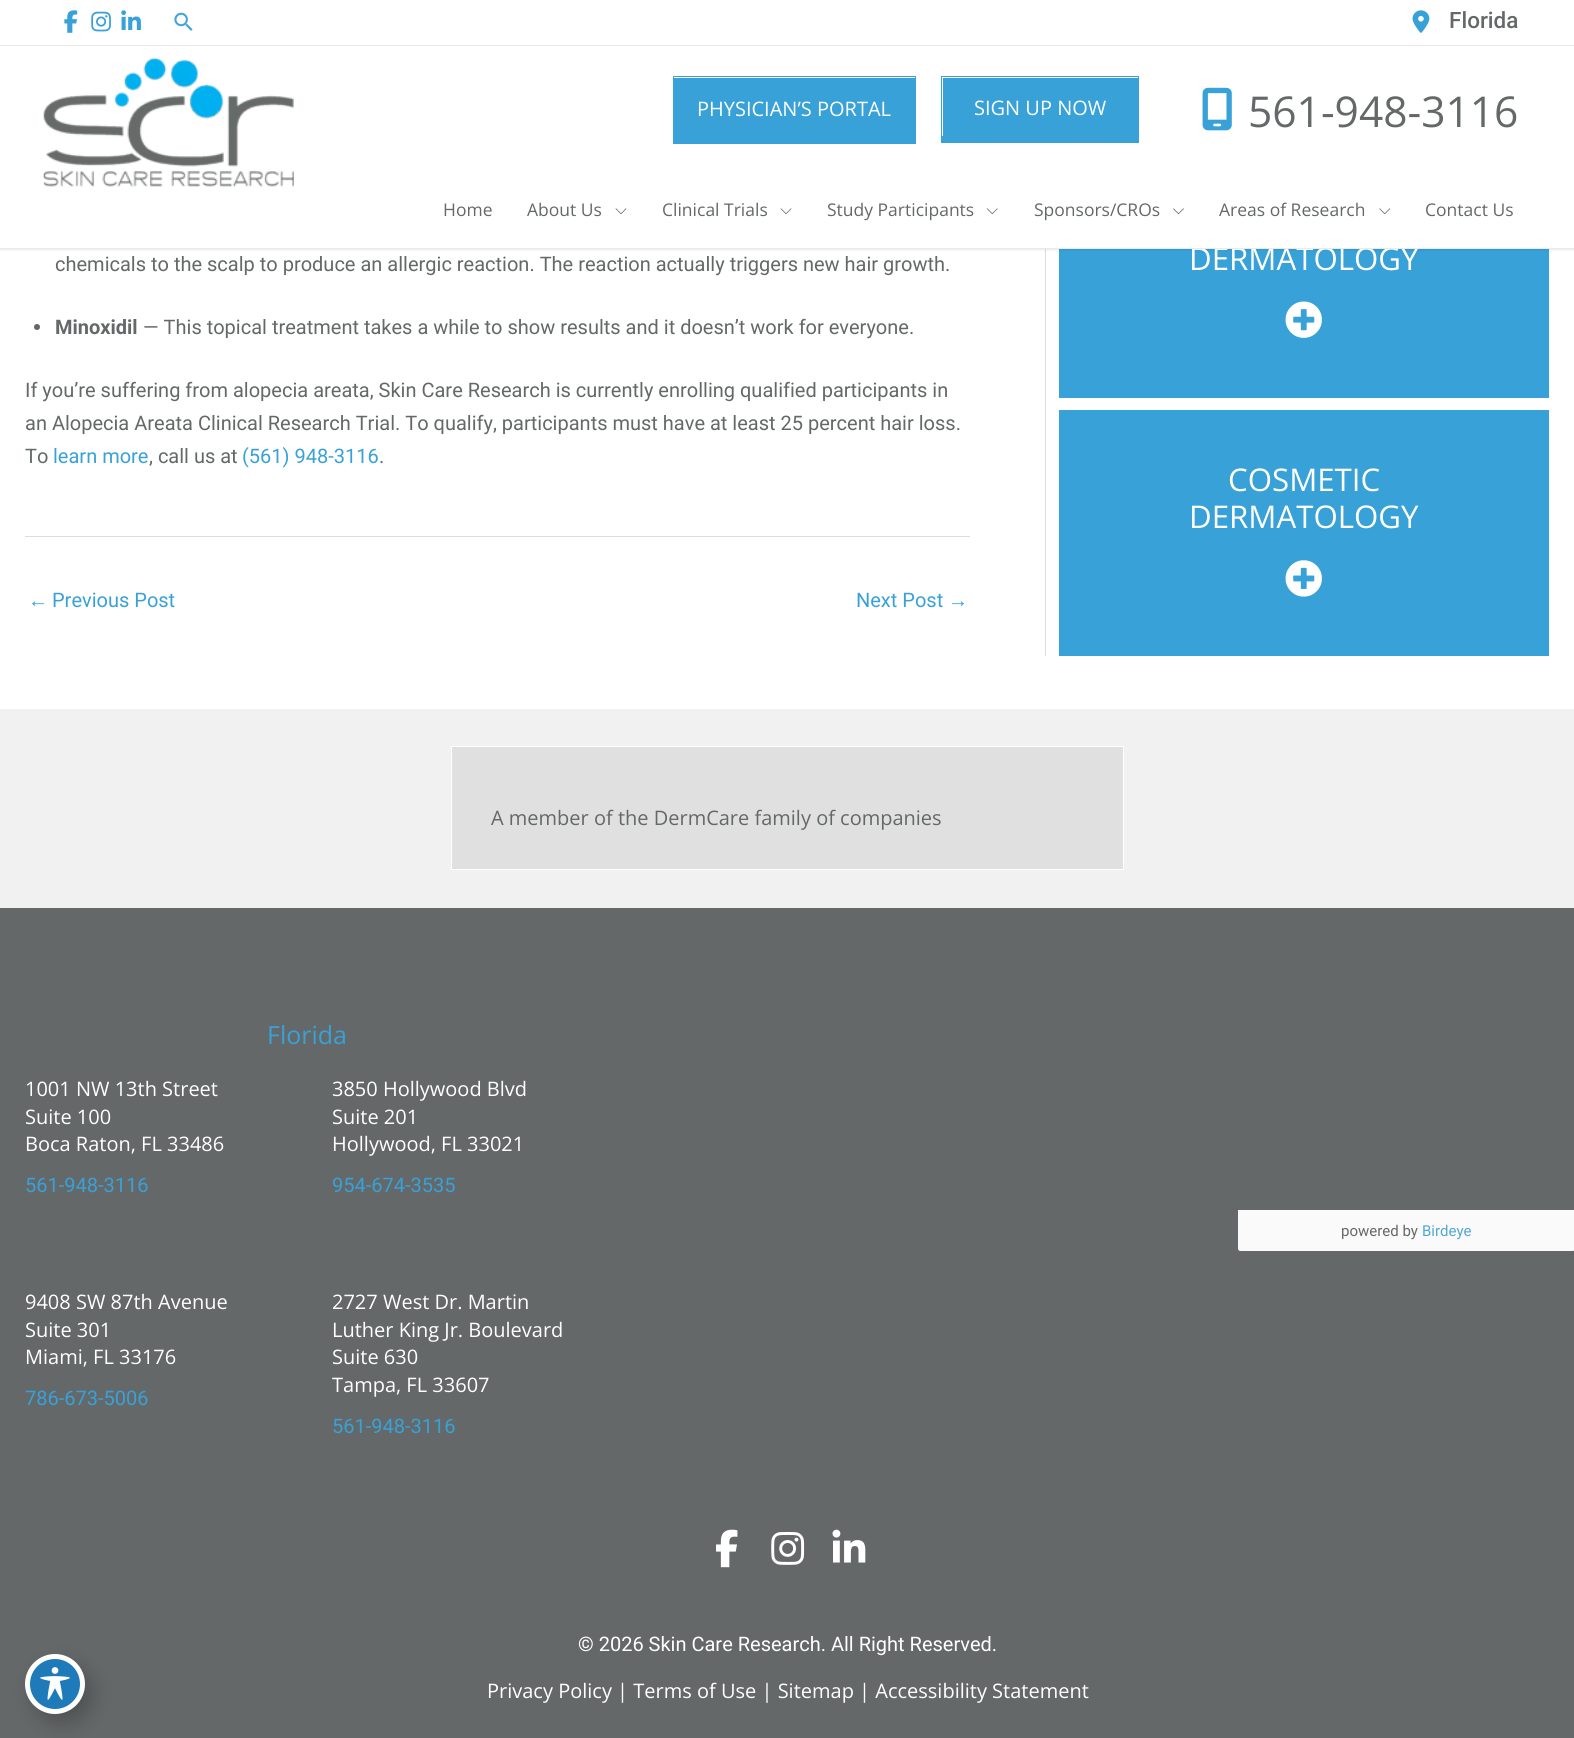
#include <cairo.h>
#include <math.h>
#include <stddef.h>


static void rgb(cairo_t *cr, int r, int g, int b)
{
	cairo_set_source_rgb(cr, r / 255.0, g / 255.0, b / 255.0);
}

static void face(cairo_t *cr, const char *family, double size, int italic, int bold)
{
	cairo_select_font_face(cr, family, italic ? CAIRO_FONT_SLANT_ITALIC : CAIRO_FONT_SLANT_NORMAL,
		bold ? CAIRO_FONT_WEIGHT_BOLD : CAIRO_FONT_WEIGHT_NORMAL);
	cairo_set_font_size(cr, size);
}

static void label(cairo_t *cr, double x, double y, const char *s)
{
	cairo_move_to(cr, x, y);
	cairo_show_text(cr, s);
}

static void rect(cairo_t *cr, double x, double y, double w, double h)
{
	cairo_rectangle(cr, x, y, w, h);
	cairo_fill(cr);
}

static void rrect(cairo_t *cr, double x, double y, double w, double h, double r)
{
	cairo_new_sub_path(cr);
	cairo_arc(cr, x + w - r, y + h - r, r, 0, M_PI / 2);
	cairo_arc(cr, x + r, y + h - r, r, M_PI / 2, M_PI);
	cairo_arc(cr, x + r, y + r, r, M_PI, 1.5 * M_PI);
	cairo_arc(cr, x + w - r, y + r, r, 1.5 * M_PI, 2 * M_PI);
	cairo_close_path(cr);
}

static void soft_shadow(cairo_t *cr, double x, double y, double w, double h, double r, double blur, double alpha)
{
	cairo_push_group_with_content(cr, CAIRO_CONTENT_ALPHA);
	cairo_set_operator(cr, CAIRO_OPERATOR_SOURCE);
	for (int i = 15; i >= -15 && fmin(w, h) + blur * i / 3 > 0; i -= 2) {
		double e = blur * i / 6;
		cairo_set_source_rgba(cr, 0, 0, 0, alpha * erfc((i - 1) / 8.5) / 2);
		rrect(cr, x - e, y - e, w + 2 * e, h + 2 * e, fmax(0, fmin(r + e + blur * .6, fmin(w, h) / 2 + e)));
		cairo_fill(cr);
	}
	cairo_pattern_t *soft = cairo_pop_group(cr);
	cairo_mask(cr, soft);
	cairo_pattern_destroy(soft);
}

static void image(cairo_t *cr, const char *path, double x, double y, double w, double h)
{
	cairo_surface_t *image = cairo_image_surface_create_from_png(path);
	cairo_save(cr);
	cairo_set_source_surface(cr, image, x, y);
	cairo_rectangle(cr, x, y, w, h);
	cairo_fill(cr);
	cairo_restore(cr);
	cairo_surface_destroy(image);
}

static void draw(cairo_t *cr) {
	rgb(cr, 255, 255, 255);
	cairo_paint(cr);
	rgb(cr, 221, 221, 221);
	rect(cr, 1045, 249, 1, 407);
	rgb(cr, 56, 161, 216);
	rect(cr, 1059, 249, 490, 149);
	rgb(cr, 0, 0, 0);
	soft_shadow(cr, 0, 1, 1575, 249, 0, 1, 0.08);
	rgb(cr, 255, 255, 255);
	rect(cr, 0, 0, 1574, 248);
	rgb(cr, 234, 234, 234);
	rect(cr, 0, 45, 1574, 1);
	image(cr, "image0.png", 64, 10, 14, 23);
	image(cr, "image1.png", 91, 11, 20, 21);
	image(cr, "image2.png", 121, 10, 20, 20);
	image(cr, "image3.png", 174, 12, 19, 19);
	image(cr, "image4.png", 1412, 10, 18, 23);
	face(cr, "Roboto Medium", 22.5, 0, 0);
	rgb(cr, 100, 104, 104);
	label(cr, 1449, 28, "Florida");
	image(cr, "image5.png", 43, 57, 251, 130);
	rgb(cr, 56, 161, 216);
	rect(cr, 674, 78, 241, 60);
	rect(cr, 673, 76, 243, 1);
	rect(cr, 915, 76, 1, 68);
	rect(cr, 673, 138, 243, 6);
	rect(cr, 673, 76, 1, 68);
	face(cr, "Open Sans", 20, 0, 0);
	rgb(cr, 255, 255, 255);
	label(cr, 697, 116, "PHYSICIAN’S PORTAL");
	rgb(cr, 56, 161, 216);
	rect(cr, 943, 78, 195, 58);
	rect(cr, 941, 76, 198, 1);
	rect(cr, 1138, 76, 1, 67);
	rect(cr, 941, 136, 198, 7);
	rect(cr, 941, 76, 1, 67);
	rgb(cr, 255, 255, 255);
	label(cr, 974, 115, "SIGN UP NOW");
	image(cr, "image6.png", 1202, 87, 30, 44);
	face(cr, "Open Sans", 42.5, 0, 0);
	rgb(cr, 100, 104, 104);
	label(cr, 1248, 127, "561-948-3116");
	face(cr, "Open Sans", 31.25, 0, 0);
	rgb(cr, 255, 255, 255);
	label(cr, 1189, 270, "DERMATOLOGY");
	rgb(cr, 234, 234, 234);
	rect(cr, 0, 248, 1574, 1);
	face(cr, "Open Sans", 17.5, 0, 0);
	rgb(cr, 100, 104, 104);
	label(cr, 443, 216, "Home");
	label(cr, 527, 216, "About Us");
	image(cr, "image7.png", 615, 208, 12, 7);
	label(cr, 662, 216, "Clinical Trials");
	image(cr, "image7.png", 780, 208, 12, 7);
	label(cr, 827, 216, "Study Participants");
	image(cr, "image8.png", 986, 208, 12, 7);
	label(cr, 1034, 216, "Sponsors/CROs");
	image(cr, "image9.png", 1173, 208, 11, 7);
	label(cr, 1219, 216, "Areas of Research");
	image(cr, "image10.png", 1379, 208, 12, 7);
	label(cr, 1425, 216, "Contact Us");
	face(cr, "Roboto", 20, 0, 0);
	label(cr, 55, 271, "chemicals to the scalp to produce an allergic reaction. The reaction actually triggers new hair growth.");
	cairo_new_path(cr);
	cairo_arc(cr, 37, 327, 3, 0, 2 * M_PI);
	cairo_fill(cr);
	face(cr, "Roboto", 20, 0, 1);
	label(cr, 55, 334, "Minoxidil");
	face(cr, "Roboto", 20, 0, 0);
	label(cr, 143, 334, "— This topical treatment takes a while to show results and it doesn’t work for everyone.");
	label(cr, 25, 397, "If you’re suffering from alopecia areata, Skin Care Research is currently enrolling qualified participants in");
	label(cr, 25, 430, "an Alopecia Areata Clinical Research Trial. To qualify, participants must have at least 25 percent hair loss.");
	label(cr, 25, 463, "To");
	rgb(cr, 56, 161, 216);
	label(cr, 53, 463, "learn more");
	rgb(cr, 100, 104, 104);
	label(cr, 149, 463, ", call us at");
	rgb(cr, 56, 161, 216);
	label(cr, 242, 463, "(561) 948-3116");
	rgb(cr, 100, 104, 104);
	label(cr, 379, 463, ".");
	rgb(cr, 221, 221, 221);
	rect(cr, 25, 536, 945, 1);
	face(cr, "Liberation Sans", 20, 0, 0);
	rgb(cr, 56, 161, 216);
	label(cr, 28, 607, "←");
	face(cr, "Roboto", 20, 0, 0);
	label(cr, 52, 607, "Previous Post");
	label(cr, 856, 607, "Next Post");
	face(cr, "Liberation Sans", 20, 0, 0);
	label(cr, 948, 607, "→");
	image(cr, "image11.png", 1285, 301, 37, 37);
	rect(cr, 1059, 410, 490, 246);
	face(cr, "Open Sans", 31.25, 0, 0);
	rgb(cr, 255, 255, 255);
	label(cr, 1228, 491, "COSMETIC");
	label(cr, 1189, 528, "DERMATOLOGY");
	image(cr, "image12.png", 1285, 560, 37, 37);
	rgb(cr, 241, 241, 241);
	rect(cr, 0, 709, 1574, 199);
	rgb(cr, 224, 224, 224);
	cairo_rectangle(cr, 451.5, 746.5, 672, 123);
	cairo_fill_preserve(cr);
	rgb(cr, 255, 255, 255);
	cairo_set_line_width(cr, 1);
	cairo_stroke(cr);
	face(cr, "Open Sans", 20, 0, 0);
	rgb(cr, 100, 104, 104);
	label(cr, 491, 825, "A member of the DermCare family of companies");
	rect(cr, 0, 908, 1574, 830);
	face(cr, "Open Sans", 25, 0, 0);
	rgb(cr, 56, 161, 216);
	label(cr, 267, 1044, "Florida");
	face(cr, "Open Sans", 20, 0, 0);
	rgb(cr, 255, 255, 255);
	label(cr, 25, 1096, "1001 NW 13th Street");
	label(cr, 25, 1124, "Suite 100");
	label(cr, 25, 1151, "Boca Raton, FL 33486");
	face(cr, "Roboto", 20, 0, 0);
	rgb(cr, 56, 161, 216);
	label(cr, 25, 1192, "561-948-3116");
	face(cr, "Open Sans", 20, 0, 0);
	rgb(cr, 255, 255, 255);
	label(cr, 332, 1096, "3850 Hollywood Blvd");
	label(cr, 332, 1124, "Suite 201");
	label(cr, 332, 1151, "Hollywood, FL 33021");
	face(cr, "Roboto", 20, 0, 0);
	rgb(cr, 56, 161, 216);
	label(cr, 332, 1192, "954-674-3535");
	face(cr, "Open Sans", 20, 0, 0);
	rgb(cr, 255, 255, 255);
	label(cr, 25, 1309, "9408 SW 87th Avenue");
	label(cr, 25, 1337, "Suite 301");
	label(cr, 25, 1364, "Miami, FL 33176");
	face(cr, "Roboto", 20, 0, 0);
	rgb(cr, 56, 161, 216);
	label(cr, 25, 1405, "786-673-5006");
	face(cr, "Open Sans", 20, 0, 0);
	rgb(cr, 255, 255, 255);
	label(cr, 332, 1309, "2727 West Dr. Martin");
	label(cr, 332, 1337, "Luther King Jr. Boulevard");
	label(cr, 332, 1364, "Suite 630");
	label(cr, 332, 1392, "Tampa, FL 33607");
	face(cr, "Roboto", 20, 0, 0);
	rgb(cr, 56, 161, 216);
	label(cr, 332, 1433, "561-948-3116");
	rgb(cr, 250, 250, 250);
	cairo_new_path(cr);
	cairo_move_to(cr, 1238, 1210);
	cairo_line_to(cr, 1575, 1210);
	cairo_line_to(cr, 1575, 1248.5);
	cairo_curve_to(cr, 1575, 1250, 1574, 1251, 1572.5, 1251);
	cairo_line_to(cr, 1240.5, 1251);
	cairo_curve_to(cr, 1239, 1251, 1238, 1250, 1238, 1248.5);
	cairo_close_path(cr);
	cairo_fill(cr);
	face(cr, "Roboto", 15, 0, 0);
	rgb(cr, 100, 104, 104);
	label(cr, 1341, 1236, "powered by");
	rgb(cr, 81, 168, 211);
	label(cr, 1422, 1236, "Birdeye");
	image(cr, "image13.png", 716, 1529, 22, 39);
	image(cr, "image14.png", 771, 1532, 34, 33);
	image(cr, "image15.png", 832, 1529, 34, 34);
	face(cr, "Roboto", 20, 0, 0);
	rgb(cr, 255, 255, 255);
	label(cr, 578, 1651, "© 2026 Skin Care Research. All Right Reserved.");
	face(cr, "Open Sans", 20, 0, 0);
	label(cr, 487, 1698, "Privacy Policy | Terms of Use | Sitemap | Accessibility Statement");
	rgb(cr, 0, 0, 0);
	soft_shadow(cr, 33, 1664, 60, 60, 30, 10, 0.2);
	rgb(cr, 30, 122, 185);
	cairo_arc(cr, 55, 1684, 27.5, 0, 2 * M_PI);
	cairo_fill_preserve(cr);
	rgb(cr, 255, 255, 255);
	cairo_set_line_width(cr, 5);
	cairo_stroke(cr);
	image(cr, "image16.png", 40, 1667, 30, 33);
}

int main(void) {
	cairo_surface_t *surface = cairo_image_surface_create(CAIRO_FORMAT_RGB24, 1574, 1738);
	cairo_t *cr = cairo_create(surface);
	cairo_font_options_t *options = cairo_font_options_create();
	cairo_font_options_set_hint_metrics(options, CAIRO_HINT_METRICS_OFF);
	cairo_font_options_set_hint_style(options, CAIRO_HINT_STYLE_NONE);
	cairo_set_font_options(cr, options);
	cairo_set_miter_limit(cr, 4);
	draw(cr);
	cairo_surface_write_to_png(surface, "render.png");
	cairo_font_options_destroy(options);
	cairo_destroy(cr);
	cairo_surface_destroy(surface);
	return 0;
}
